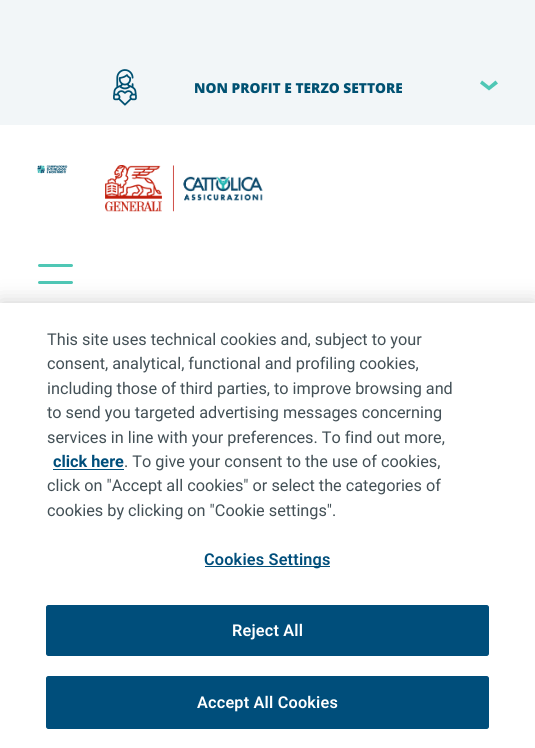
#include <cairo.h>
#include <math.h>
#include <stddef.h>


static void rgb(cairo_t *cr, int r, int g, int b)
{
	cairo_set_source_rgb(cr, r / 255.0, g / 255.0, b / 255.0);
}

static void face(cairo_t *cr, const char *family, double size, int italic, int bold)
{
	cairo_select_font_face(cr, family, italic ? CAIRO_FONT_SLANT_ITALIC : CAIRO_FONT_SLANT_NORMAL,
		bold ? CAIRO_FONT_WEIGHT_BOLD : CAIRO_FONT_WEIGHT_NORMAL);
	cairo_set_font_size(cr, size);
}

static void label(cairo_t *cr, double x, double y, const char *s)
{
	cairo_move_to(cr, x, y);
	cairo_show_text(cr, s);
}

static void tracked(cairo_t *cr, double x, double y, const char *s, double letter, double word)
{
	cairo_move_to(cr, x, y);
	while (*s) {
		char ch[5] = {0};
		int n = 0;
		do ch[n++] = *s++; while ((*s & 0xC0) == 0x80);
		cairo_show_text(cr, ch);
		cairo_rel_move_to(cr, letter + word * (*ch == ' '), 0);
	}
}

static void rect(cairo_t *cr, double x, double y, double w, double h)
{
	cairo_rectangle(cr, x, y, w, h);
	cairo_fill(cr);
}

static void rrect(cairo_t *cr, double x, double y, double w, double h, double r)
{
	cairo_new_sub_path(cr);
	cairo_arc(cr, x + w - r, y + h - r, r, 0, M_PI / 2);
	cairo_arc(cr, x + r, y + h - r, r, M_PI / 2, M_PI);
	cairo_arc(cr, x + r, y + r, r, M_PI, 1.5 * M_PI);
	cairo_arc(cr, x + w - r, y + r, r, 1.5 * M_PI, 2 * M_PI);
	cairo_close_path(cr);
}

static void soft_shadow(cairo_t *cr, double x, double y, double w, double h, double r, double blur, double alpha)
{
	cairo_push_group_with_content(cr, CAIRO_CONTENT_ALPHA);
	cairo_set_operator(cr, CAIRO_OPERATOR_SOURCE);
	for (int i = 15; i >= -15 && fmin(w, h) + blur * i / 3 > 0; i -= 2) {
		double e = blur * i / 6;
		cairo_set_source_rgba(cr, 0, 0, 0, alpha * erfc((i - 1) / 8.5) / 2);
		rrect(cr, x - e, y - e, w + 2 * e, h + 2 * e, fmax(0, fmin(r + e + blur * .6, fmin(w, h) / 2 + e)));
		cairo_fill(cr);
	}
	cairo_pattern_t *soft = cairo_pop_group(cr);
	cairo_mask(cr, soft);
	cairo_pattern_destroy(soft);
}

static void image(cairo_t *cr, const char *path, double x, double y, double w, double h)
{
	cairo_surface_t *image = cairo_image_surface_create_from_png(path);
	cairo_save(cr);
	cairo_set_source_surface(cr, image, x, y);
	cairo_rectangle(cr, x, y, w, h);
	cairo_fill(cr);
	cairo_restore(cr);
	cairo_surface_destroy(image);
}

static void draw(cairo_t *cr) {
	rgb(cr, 255, 255, 255);
	cairo_paint(cr);
	rgb(cr, 242, 246, 248);
	rect(cr, 0, 0, 535, 125);
	image(cr, "image0.png", 113, 69, 24, 37);
	face(cr, "Open Sans ExtraBold", 13.75, 0, 0);
	rgb(cr, 0, 81, 114);
	label(cr, 194, 93, "NON PROFIT E TERZO SETTORE");
	rgb(cr, 79, 199, 181);
	cairo_new_path(cr);
	cairo_move_to(cr, 489, 86);
	cairo_line_to(cr, 495.5, 80.5);
	cairo_line_to(cr, 498, 83.5);
	cairo_line_to(cr, 489, 90.5);
	cairo_line_to(cr, 480, 83.5);
	cairo_line_to(cr, 482, 80.5);
	cairo_close_path(cr);
	cairo_fill(cr);
	image(cr, "image1.png", 37, 165, 31, 9);
	image(cr, "image2.png", 105, 165, 158, 47);
	rrect(cr, 38, 264, 35, 3, 1.5);
	cairo_fill(cr);
	rrect(cr, 38, 281, 35, 3, 1.5);
	cairo_fill(cr);
	rgb(cr, 0, 0, 0);
	soft_shadow(cr, 0, 303, 535, 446, 0, 11, 0.2);
	rgb(cr, 255, 255, 255);
	rect(cr, 0, 303, 535, 445);
	face(cr, "Roboto", 16.25, 0, 0);
	rgb(cr, 67, 80, 86);
	label(cr, 47, 345, "This site uses technical cookies and, subject to your");
	label(cr, 47, 369, "consent, analytical, functional and profiling cookies,");
	label(cr, 47, 394, "including those of third parties, to improve browsing and");
	label(cr, 47, 418, "to send you targeted advertising messages concerning");
	label(cr, 47, 443, "services in line with your preferences. To find out more,");
	face(cr, "Roboto", 16.25, 0, 1);
	rgb(cr, 0, 78, 123);
	label(cr, 53, 467, "click here");
	rect(cr, 53, 469, 71, 1);
	face(cr, "Roboto", 16.25, 0, 0);
	rgb(cr, 67, 80, 86);
	label(cr, 124, 467, ". To give your consent to the use of cookies,");
	label(cr, 47, 491, "click on \"Accept all cookies\" or select the categories of");
	label(cr, 47, 516, "cookies by clicking on \"Cookie settings\".");
	rgb(cr, 0, 78, 123);
	rect(cr, 205, 566, 125, 1);
	face(cr, "Roboto SemiBold", 16.25, 0, 0);
	tracked(cr, 204, 565, "Cookies Settings", 0.2, 0);
	rrect(cr, 46.5, 605.5, 442, 50, 2);
	cairo_fill_preserve(cr);
	cairo_set_line_width(cr, 1);
	cairo_stroke(cr);
	rgb(cr, 255, 255, 255);
	tracked(cr, 232, 636, "Reject All", 0.2, 0);
	rgb(cr, 0, 78, 123);
	rrect(cr, 46.5, 676.5, 442, 52, 2);
	cairo_fill_preserve(cr);
	cairo_stroke(cr);
	rgb(cr, 255, 255, 255);
	tracked(cr, 197, 708, "Accept All Cookies", 0.2, 0);
}

int main(void) {
	cairo_surface_t *surface = cairo_image_surface_create(CAIRO_FORMAT_RGB24, 535, 748);
	cairo_t *cr = cairo_create(surface);
	cairo_font_options_t *options = cairo_font_options_create();
	cairo_font_options_set_hint_metrics(options, CAIRO_HINT_METRICS_OFF);
	cairo_font_options_set_hint_style(options, CAIRO_HINT_STYLE_NONE);
	cairo_set_font_options(cr, options);
	cairo_set_miter_limit(cr, 4);
	draw(cr);
	cairo_surface_write_to_png(surface, "render.png");
	cairo_font_options_destroy(options);
	cairo_destroy(cr);
	cairo_surface_destroy(surface);
	return 0;
}
